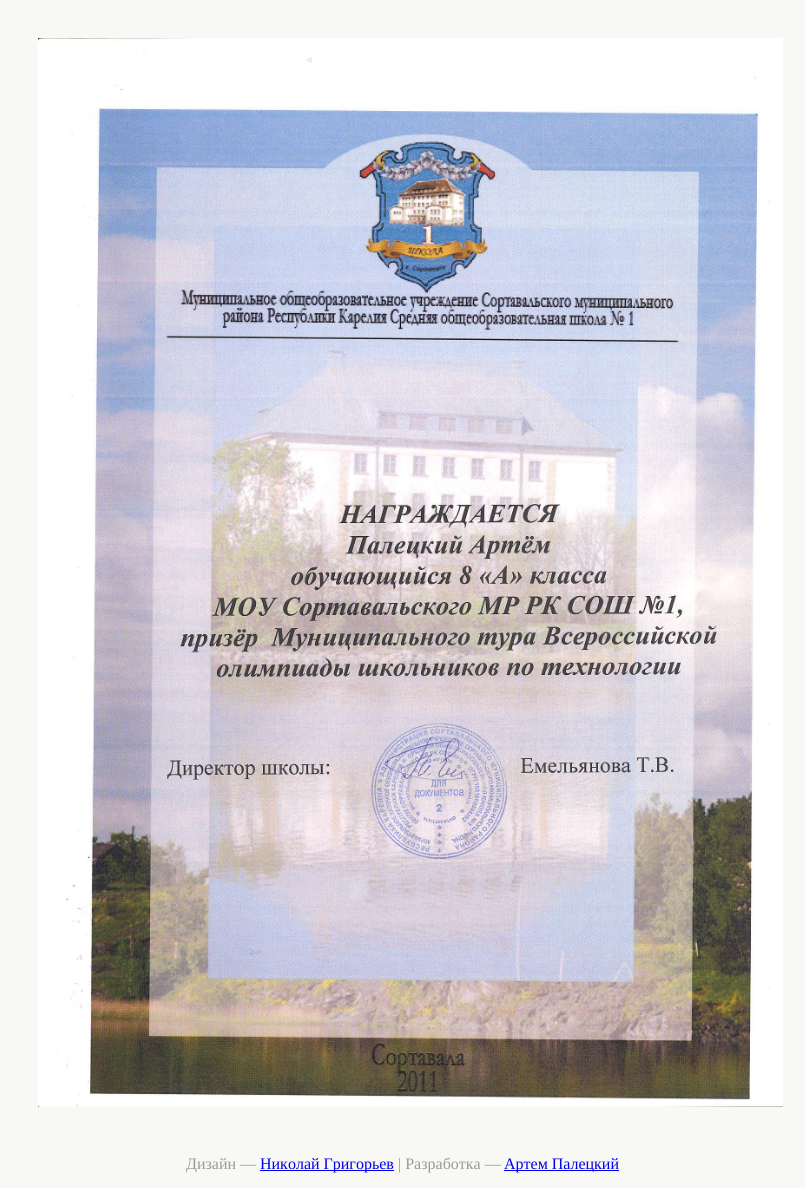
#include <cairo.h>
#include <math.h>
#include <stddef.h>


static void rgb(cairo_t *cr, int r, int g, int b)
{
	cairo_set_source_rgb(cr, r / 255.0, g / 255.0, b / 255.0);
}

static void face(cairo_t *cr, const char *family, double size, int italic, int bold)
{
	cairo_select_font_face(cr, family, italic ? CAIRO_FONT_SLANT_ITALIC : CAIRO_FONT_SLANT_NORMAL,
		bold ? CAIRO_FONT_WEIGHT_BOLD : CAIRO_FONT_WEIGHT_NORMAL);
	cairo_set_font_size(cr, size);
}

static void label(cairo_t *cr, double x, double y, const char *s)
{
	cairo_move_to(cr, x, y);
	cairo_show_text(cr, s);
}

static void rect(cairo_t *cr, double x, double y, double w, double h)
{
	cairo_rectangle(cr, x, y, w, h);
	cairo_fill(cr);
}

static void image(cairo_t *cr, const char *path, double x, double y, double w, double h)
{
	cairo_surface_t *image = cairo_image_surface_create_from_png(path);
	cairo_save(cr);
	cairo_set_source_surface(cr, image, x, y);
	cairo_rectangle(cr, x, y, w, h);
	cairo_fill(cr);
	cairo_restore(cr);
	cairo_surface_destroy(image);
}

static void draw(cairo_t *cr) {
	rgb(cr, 248, 248, 244);
	cairo_paint(cr);
	image(cr, "image0.png", 38, 38, 745, 1069);
	face(cr, "Liberation Serif", 16, 0, 0);
	rgb(cr, 153, 153, 153);
	label(cr, 186, 1169, "Дизайн —");
	rgb(cr, 0, 0, 238);
	rect(cr, 260, 1170, 134, 1);
	label(cr, 260, 1169, "Николай Григорьев");
	rgb(cr, 153, 153, 153);
	label(cr, 398, 1169, "| Разработка —");
	rgb(cr, 0, 0, 238);
	rect(cr, 504, 1170, 115, 1);
	label(cr, 504, 1169, "Артем Палецкий");
}

int main(void) {
	cairo_surface_t *surface = cairo_image_surface_create(CAIRO_FORMAT_RGB24, 805, 1188);
	cairo_t *cr = cairo_create(surface);
	cairo_font_options_t *options = cairo_font_options_create();
	cairo_font_options_set_hint_metrics(options, CAIRO_HINT_METRICS_OFF);
	cairo_font_options_set_hint_style(options, CAIRO_HINT_STYLE_NONE);
	cairo_set_font_options(cr, options);
	cairo_set_miter_limit(cr, 4);
	draw(cr);
	cairo_surface_write_to_png(surface, "render.png");
	cairo_font_options_destroy(options);
	cairo_destroy(cr);
	cairo_surface_destroy(surface);
	return 0;
}
